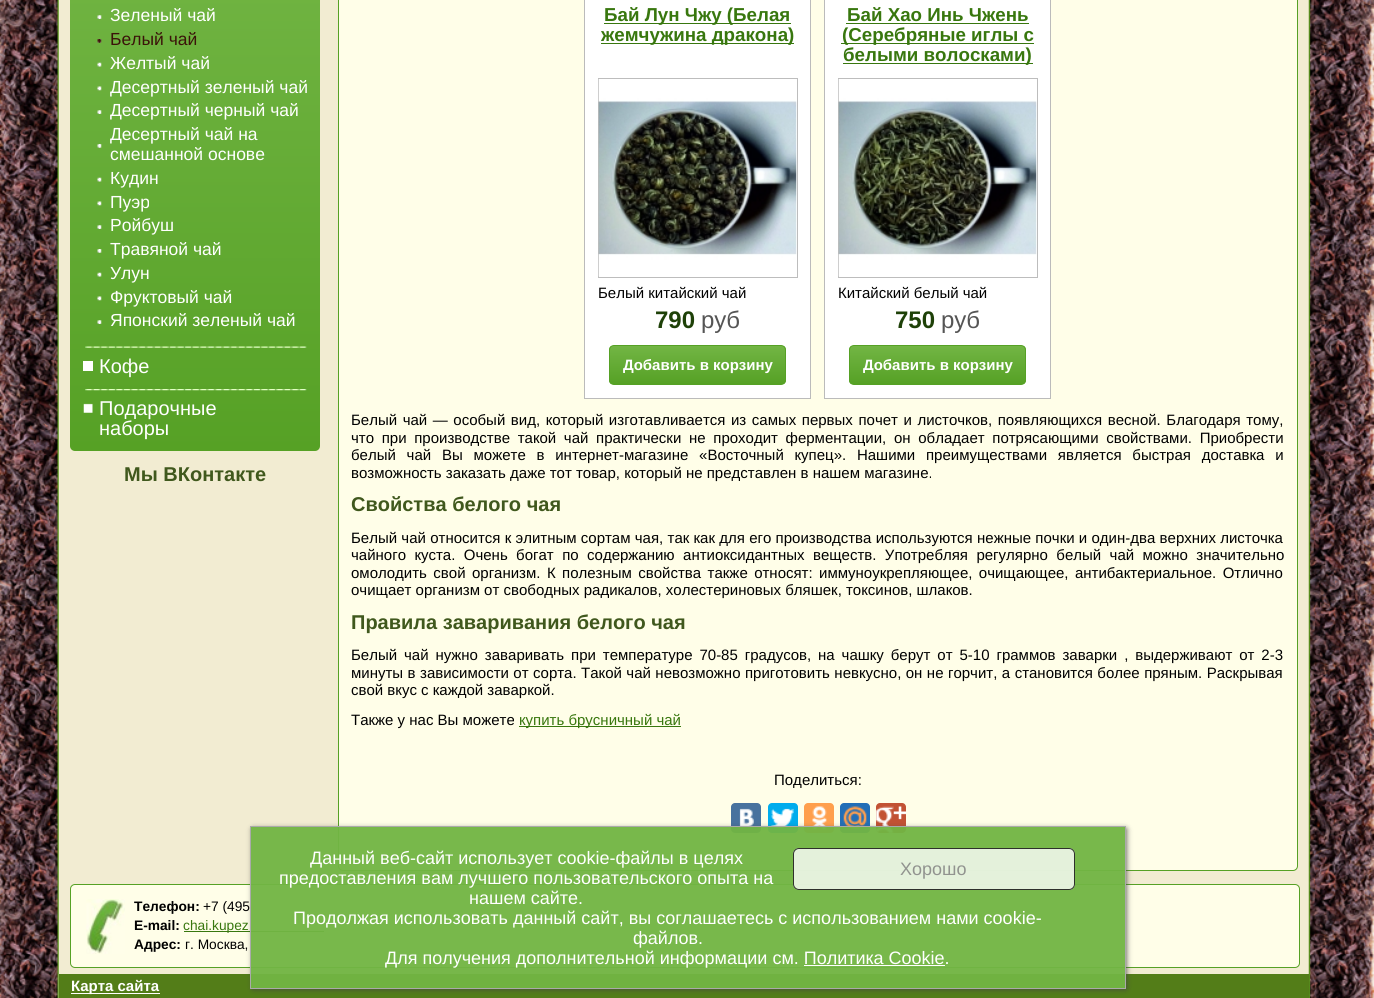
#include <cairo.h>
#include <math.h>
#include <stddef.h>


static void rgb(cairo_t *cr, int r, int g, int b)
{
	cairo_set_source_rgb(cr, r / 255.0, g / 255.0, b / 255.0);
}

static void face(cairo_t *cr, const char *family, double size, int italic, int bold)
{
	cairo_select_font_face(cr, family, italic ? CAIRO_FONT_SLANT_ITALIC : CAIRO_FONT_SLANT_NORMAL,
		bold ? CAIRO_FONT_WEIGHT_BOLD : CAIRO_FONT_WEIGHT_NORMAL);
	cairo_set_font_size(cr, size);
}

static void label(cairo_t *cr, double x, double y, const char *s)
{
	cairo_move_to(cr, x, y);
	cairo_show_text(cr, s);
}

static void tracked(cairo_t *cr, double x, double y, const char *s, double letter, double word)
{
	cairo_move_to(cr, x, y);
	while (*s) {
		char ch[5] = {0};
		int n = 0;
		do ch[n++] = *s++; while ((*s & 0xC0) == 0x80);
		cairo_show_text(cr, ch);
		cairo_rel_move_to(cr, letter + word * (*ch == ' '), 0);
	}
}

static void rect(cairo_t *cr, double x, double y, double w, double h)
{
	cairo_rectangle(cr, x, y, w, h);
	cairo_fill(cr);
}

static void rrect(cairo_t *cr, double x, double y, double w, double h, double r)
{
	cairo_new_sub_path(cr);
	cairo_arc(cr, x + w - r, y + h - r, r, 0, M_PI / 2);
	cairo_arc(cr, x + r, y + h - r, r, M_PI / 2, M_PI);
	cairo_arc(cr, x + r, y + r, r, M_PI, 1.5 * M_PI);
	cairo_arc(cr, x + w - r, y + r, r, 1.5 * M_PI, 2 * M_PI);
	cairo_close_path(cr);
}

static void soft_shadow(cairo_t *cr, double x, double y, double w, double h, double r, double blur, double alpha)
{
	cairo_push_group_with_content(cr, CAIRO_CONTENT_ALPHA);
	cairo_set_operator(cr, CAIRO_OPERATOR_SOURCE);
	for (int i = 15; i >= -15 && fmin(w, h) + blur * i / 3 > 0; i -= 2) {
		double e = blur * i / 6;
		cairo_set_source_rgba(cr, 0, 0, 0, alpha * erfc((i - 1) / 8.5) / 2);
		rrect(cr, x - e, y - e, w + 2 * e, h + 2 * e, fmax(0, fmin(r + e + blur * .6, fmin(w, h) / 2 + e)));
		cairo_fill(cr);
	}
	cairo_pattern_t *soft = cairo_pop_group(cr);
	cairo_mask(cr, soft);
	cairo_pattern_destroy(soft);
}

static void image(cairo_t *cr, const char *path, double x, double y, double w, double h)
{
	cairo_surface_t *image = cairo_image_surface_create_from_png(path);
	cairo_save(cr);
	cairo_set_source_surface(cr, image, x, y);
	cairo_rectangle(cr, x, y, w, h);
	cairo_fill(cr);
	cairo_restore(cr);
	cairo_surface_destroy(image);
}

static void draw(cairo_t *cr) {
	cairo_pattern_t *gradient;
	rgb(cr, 255, 255, 255);
	cairo_paint(cr);
	image(cr, "image0.png", 0, 0, 1374, 998);
	gradient = cairo_pattern_create_linear(195, -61, 195, 451);
	cairo_pattern_add_color_stop_rgba(gradient, 0, 0.447, 0.71, 0.267, 1);
	cairo_pattern_add_color_stop_rgba(gradient, 1, 0.337, 0.631, 0.145, 1);
	cairo_set_source(cr, gradient);
	cairo_pattern_destroy(gradient);
	rrect(cr, 70, -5, 250, 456, 5);
	cairo_fill(cr);
	image(cr, "image1.png", 97, 15, 5, 4);
	face(cr, "Liberation Sans", 17.5, 0, 0);
	rgb(cr, 255, 255, 255);
	label(cr, 110, 21, "Зеленый чай");
	image(cr, "image2.png", 97, 39, 5, 4);
	rgb(cr, 59, 19, 9);
	label(cr, 110, 45, "Белый чай");
	image(cr, "image3.png", 97, 62, 5, 5);
	rgb(cr, 255, 255, 255);
	label(cr, 110, 69, "Желтый чай");
	image(cr, "image4.png", 97, 86, 5, 5);
	label(cr, 110, 93, "Десертный зеленый чай");
	image(cr, "image5.png", 97, 110, 5, 4);
	label(cr, 110, 116, "Десертный черный чай");
	image(cr, "image6.png", 97, 144, 5, 4);
	label(cr, 110, 140, "Десертный чай на");
	label(cr, 110, 160, "смешанной основе");
	image(cr, "image7.png", 97, 177, 5, 5);
	label(cr, 110, 184, "Кудин");
	image(cr, "image8.png", 97, 201, 5, 5);
	label(cr, 110, 208, "Пуэр");
	image(cr, "image9.png", 97, 225, 5, 4);
	label(cr, 110, 231, "Ройбуш");
	image(cr, "image10.png", 97, 249, 5, 4);
	label(cr, 110, 255, "Травяной чай");
	image(cr, "image11.png", 97, 272, 5, 5);
	label(cr, 110, 279, "Улун");
	image(cr, "image12.png", 97, 296, 5, 5);
	label(cr, 110, 303, "Фруктовый чай");
	image(cr, "image13.png", 97, 320, 5, 4);
	label(cr, 110, 326, "Японский зеленый чай");
	image(cr, "image14.png", 85, 346, 222, 2);
	rect(cr, 83, 361, 10, 10);
	face(cr, "Liberation Sans", 20, 0, 0);
	label(cr, 99, 373, "Кофе");
	image(cr, "image15.png", 85, 389, 222, 2);
	image(cr, "image16.png", 83, 403, 10, 10);
	label(cr, 99, 415, "Подарочные");
	label(cr, 99, 435, "наборы");
	face(cr, "Liberation Sans", 20, 0, 1);
	rgb(cr, 64, 88, 29);
	label(cr, 124, 481, "Мы ВКонтакте");
	rgb(cr, 255, 254, 232);
	rrect(cr, 338.5, -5.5, 959, 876, 4.5);
	cairo_fill_preserve(cr);
	rgb(cr, 86, 161, 37);
	cairo_set_line_width(cr, 1);
	cairo_stroke(cr);
	rgb(cr, 255, 255, 255);
	cairo_rectangle(cr, 584.5, -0.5, 226, 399);
	cairo_fill_preserve(cr);
	rgb(cr, 187, 187, 187);
	cairo_stroke(cr);
	rgb(cr, 56, 119, 14);
	rect(cr, 604, 23, 187, 1);
	face(cr, "Liberation Sans", 18.75, 0, 1);
	label(cr, 604, 21, "Бай Лун Чжу (Белая");
	rect(cr, 601, 43, 193, 1);
	label(cr, 601, 41, "жемчужина дракона)");
	cairo_rectangle(cr, 598.5, 78.5, 199, 199);
	rgb(cr, 189, 189, 189);
	cairo_stroke(cr);
	image(cr, "image17.png", 598, 79, 199, 198);
	face(cr, "Liberation Sans", 15, 0, 0);
	rgb(cr, 0, 0, 0);
	label(cr, 598, 298, "Белый китайский чай");
	face(cr, "Liberation Sans", 24, 0, 1);
	rgb(cr, 30, 65, 8);
	label(cr, 655, 328, "790");
	face(cr, "Liberation Sans", 24, 0, 0);
	rgb(cr, 85, 85, 85);
	label(cr, 701, 328, "руб");
	cairo_save(cr);
	rrect(cr, 609, 345, 177, 40, 5);
	cairo_clip(cr);
	gradient = cairo_pattern_create_linear(698, 346, 698, 384);
	cairo_pattern_add_color_stop_rgba(gradient, 0, 0.447, 0.71, 0.267, 1);
	cairo_pattern_add_color_stop_rgba(gradient, 1, 0.337, 0.631, 0.145, 1);
	cairo_set_source(cr, gradient);
	cairo_pattern_destroy(gradient);
	rect(cr, 609, 346, 177, 38);
	cairo_restore(cr);
	rrect(cr, 609.5, 345.5, 176, 39, 4.5);
	rgb(cr, 86, 161, 37);
	cairo_stroke(cr);
	face(cr, "Liberation Sans", 15, 0, 1);
	rgb(cr, 255, 255, 255);
	label(cr, 623, 370, "Добавить в корзину");
	cairo_rectangle(cr, 824.5, -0.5, 226, 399);
	cairo_fill_preserve(cr);
	rgb(cr, 187, 187, 187);
	cairo_stroke(cr);
	face(cr, "Liberation Sans", 18.75, 0, 1);
	rgb(cr, 56, 119, 14);
	label(cr, 847, 21, "Бай Хао Инь Чжень");
	rect(cr, 846, 23, 183, 1);
	rect(cr, 841, 43, 193, 1);
	label(cr, 842, 41, "(Серебряные иглы с");
	rect(cr, 843, 63, 190, 1);
	label(cr, 843, 61, "белыми волосками)");
	cairo_rectangle(cr, 838.5, 78.5, 199, 199);
	rgb(cr, 189, 189, 189);
	cairo_stroke(cr);
	image(cr, "image18.png", 838, 79, 199, 198);
	face(cr, "Liberation Sans", 15, 0, 0);
	rgb(cr, 0, 0, 0);
	label(cr, 838, 298, "Китайский белый чай");
	face(cr, "Liberation Sans", 24, 0, 1);
	rgb(cr, 30, 65, 8);
	label(cr, 895, 328, "750");
	face(cr, "Liberation Sans", 24, 0, 0);
	rgb(cr, 85, 85, 85);
	label(cr, 941, 328, "руб");
	cairo_save(cr);
	rrect(cr, 849, 345, 177, 40, 5);
	cairo_clip(cr);
	gradient = cairo_pattern_create_linear(938, 346, 938, 384);
	cairo_pattern_add_color_stop_rgba(gradient, 0, 0.447, 0.71, 0.267, 1);
	cairo_pattern_add_color_stop_rgba(gradient, 1, 0.337, 0.631, 0.145, 1);
	cairo_set_source(cr, gradient);
	cairo_pattern_destroy(gradient);
	rect(cr, 849, 346, 177, 38);
	cairo_restore(cr);
	rrect(cr, 849.5, 345.5, 176, 39, 4.5);
	rgb(cr, 86, 161, 37);
	cairo_stroke(cr);
	face(cr, "Liberation Sans", 15, 0, 1);
	rgb(cr, 255, 255, 255);
	label(cr, 863, 370, "Добавить в корзину");
	face(cr, "Liberation Sans", 15, 0, 0);
	rgb(cr, 0, 0, 0);
	tracked(cr, 351, 425, "Белый чай — особый вид, который изготавливается из самых первых почет и листочков, появляющихся весной. Благодаря тому,", 0, 1.4);
	tracked(cr, 351, 443, "что при производстве такой чай практически не проходит ферментации, он обладает потрясающими свойствами. Приобрести", 0, 3.5);
	tracked(cr, 351, 460, "белый чай Вы можете в интернет-магазине «Восточный купец». Нашими преимуществами является быстрая доставка и", 0, 6.6);
	label(cr, 351, 478, "возможность заказать даже тот товар, который не представлен в нашем магазине.");
	face(cr, "Liberation Sans", 20, 0, 1);
	rgb(cr, 64, 88, 29);
	label(cr, 351, 511, "Свойства белого чая");
	face(cr, "Liberation Sans", 15, 0, 0);
	rgb(cr, 0, 0, 0);
	tracked(cr, 351, 543, "Белый чай относится к элитным сортам чая, так как для его производства используются нежные почки и один-два верхних листочка", 0, 0.1);
	tracked(cr, 351, 560, "чайного куста. Очень богат по содержанию антиоксидантных веществ. Употребляя регулярно белый чай можно значительно", 0, 4.25);
	tracked(cr, 351, 578, "омолодить свой организм. К полезным свойства также относят: иммуноукрепляющее, очищающее, антибактериальное. Отлично", 0, 2.25);
	label(cr, 351, 595, "очищает организм от свободных радикалов, холестериновых бляшек, токсинов, шлаков.");
	face(cr, "Liberation Sans", 20, 0, 1);
	rgb(cr, 64, 88, 29);
	label(cr, 351, 629, "Правила заваривания белого чая");
	face(cr, "Liberation Sans", 15, 0, 0);
	rgb(cr, 0, 0, 0);
	tracked(cr, 351, 660, "Белый чай нужно заваривать при температуре 70-85 градусов, на чашку берут от 5-10 граммов заварки , выдерживают от 2-3", 0, 2.75);
	tracked(cr, 351, 678, "минуты в зависимости от сорта. Такой чай невозможно приготовить невкусно, он не горчит, а становится более пряным. Раскрывая", 0, 0.3);
	label(cr, 351, 695, "свой вкус с каждой заваркой.");
	label(cr, 351, 725, "Также у нас Вы можете");
	rgb(cr, 56, 119, 14);
	rect(cr, 519, 726, 162, 1);
	label(cr, 519, 725, "купить брусничный чай");
	rgb(cr, 0, 0, 0);
	label(cr, 774, 785, "Поделиться:");
	rgb(cr, 72, 114, 158);
	rrect(cr, 731, 803, 30, 30, 4);
	cairo_fill(cr);
	image(cr, "image19.png", 739, 808, 15, 18);
	rgb(cr, 0, 172, 237);
	rrect(cr, 768, 803, 30, 30, 4);
	cairo_fill(cr);
	image(cr, "image20.png", 771, 808, 23, 20);
	rgb(cr, 255, 159, 77);
	rrect(cr, 804, 803, 30, 30, 4);
	cairo_fill(cr);
	image(cr, "image21.png", 812, 806, 15, 24);
	rgb(cr, 34, 110, 183);
	rrect(cr, 840, 803, 30, 30, 4);
	cairo_fill(cr);
	image(cr, "image22.png", 843, 806, 24, 24);
	rgb(cr, 194, 82, 52);
	rrect(cr, 876, 803, 30, 30, 4);
	cairo_fill(cr);
	image(cr, "image23.png", 876, 806, 31, 27);
	rgb(cr, 255, 254, 232);
	rrect(cr, 70.5, 884.5, 1229, 83, 4.5);
	cairo_fill_preserve(cr);
	rgb(cr, 86, 161, 37);
	cairo_stroke(cr);
	image(cr, "image24.png", 86, 899, 39, 55);
	face(cr, "Liberation Sans", 13.75, 0, 1);
	rgb(cr, 0, 0, 0);
	label(cr, 134, 911, "Телефон:");
	face(cr, "Liberation Sans", 13.75, 0, 0);
	label(cr, 203, 911, "+7 (495");
	face(cr, "Liberation Sans", 13.75, 0, 1);
	label(cr, 134, 930, "E-mail:");
	rgb(cr, 56, 119, 14);
	rect(cr, 184, 931, 140, 1);
	face(cr, "Liberation Sans", 13.75, 0, 0);
	label(cr, 183, 930, "chai.kupez");
	face(cr, "Liberation Sans", 13.75, 0, 1);
	rgb(cr, 0, 0, 0);
	label(cr, 134, 949, "Адрес:");
	face(cr, "Liberation Sans", 13.75, 0, 0);
	label(cr, 185, 949, "г. Москва,");
	rgb(cr, 83, 125, 24);
	rect(cr, 59, 974, 1250, 24);
	rgb(cr, 255, 255, 255);
	rect(cr, 71, 993, 89, 1);
	face(cr, "Liberation Sans", 15, 0, 1);
	label(cr, 71, 991, "Карта сайта");
	cairo_save(cr);
	cairo_set_fill_rule(cr, CAIRO_FILL_RULE_EVEN_ODD);
	cairo_new_path(cr);
	cairo_move_to(cr, 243, 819);
	cairo_line_to(cr, 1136, 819);
	cairo_line_to(cr, 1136, 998);
	cairo_line_to(cr, 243, 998);
	cairo_close_path(cr);
	cairo_move_to(cr, 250, 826);
	cairo_line_to(cr, 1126, 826);
	cairo_line_to(cr, 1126, 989);
	cairo_line_to(cr, 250, 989);
	cairo_close_path(cr);
	cairo_clip(cr);
	rgb(cr, 68, 68, 68);
	soft_shadow(cr, 253, 829, 873, 160, 0, 3, 1);
	cairo_restore(cr);
	cairo_set_source_rgba(cr, 0.447, 0.71, 0.267, 0.95);
	cairo_rectangle(cr, 250.5, 826.5, 875, 162);
	cairo_fill_preserve(cr);
	rgb(cr, 170, 170, 170);
	cairo_stroke(cr);
	face(cr, "Liberation Sans", 18, 0, 0);
	rgb(cr, 255, 255, 255);
	label(cr, 310, 864, "Данный веб-сайт использует cookie-файлы в целях");
	cairo_set_source_rgba(cr, 1, 1, 1, 0.8);
	rrect(cr, 793, 848, 282, 42, 6);
	cairo_fill(cr);
	rrect(cr, 793.5, 848.5, 281, 41, 5.5);
	cairo_set_source_rgba(cr, 0, 0, 0, 0.8);
	cairo_stroke(cr);
	rgb(cr, 145, 147, 143);
	label(cr, 900, 875, "Хорошо");
	rgb(cr, 255, 255, 255);
	label(cr, 279, 884, "предоставления вам лучшего пользовательского опыта на");
	label(cr, 469, 904, "нашем сайте.");
	label(cr, 293, 924, "Продолжая использовать данный сайт, вы соглашаетесь с использованием нами cookie-");
	label(cr, 633, 944, "файлов.");
	label(cr, 385, 964, "Для получения дополнительной информации см. Политика Cookie.");
	rect(cr, 804, 965, 141, 1);
}

int main(void) {
	cairo_surface_t *surface = cairo_image_surface_create(CAIRO_FORMAT_RGB24, 1374, 998);
	cairo_t *cr = cairo_create(surface);
	cairo_font_options_t *options = cairo_font_options_create();
	cairo_font_options_set_hint_metrics(options, CAIRO_HINT_METRICS_OFF);
	cairo_font_options_set_hint_style(options, CAIRO_HINT_STYLE_NONE);
	cairo_set_font_options(cr, options);
	cairo_set_miter_limit(cr, 4);
	draw(cr);
	cairo_surface_write_to_png(surface, "render.png");
	cairo_font_options_destroy(options);
	cairo_destroy(cr);
	cairo_surface_destroy(surface);
	return 0;
}
